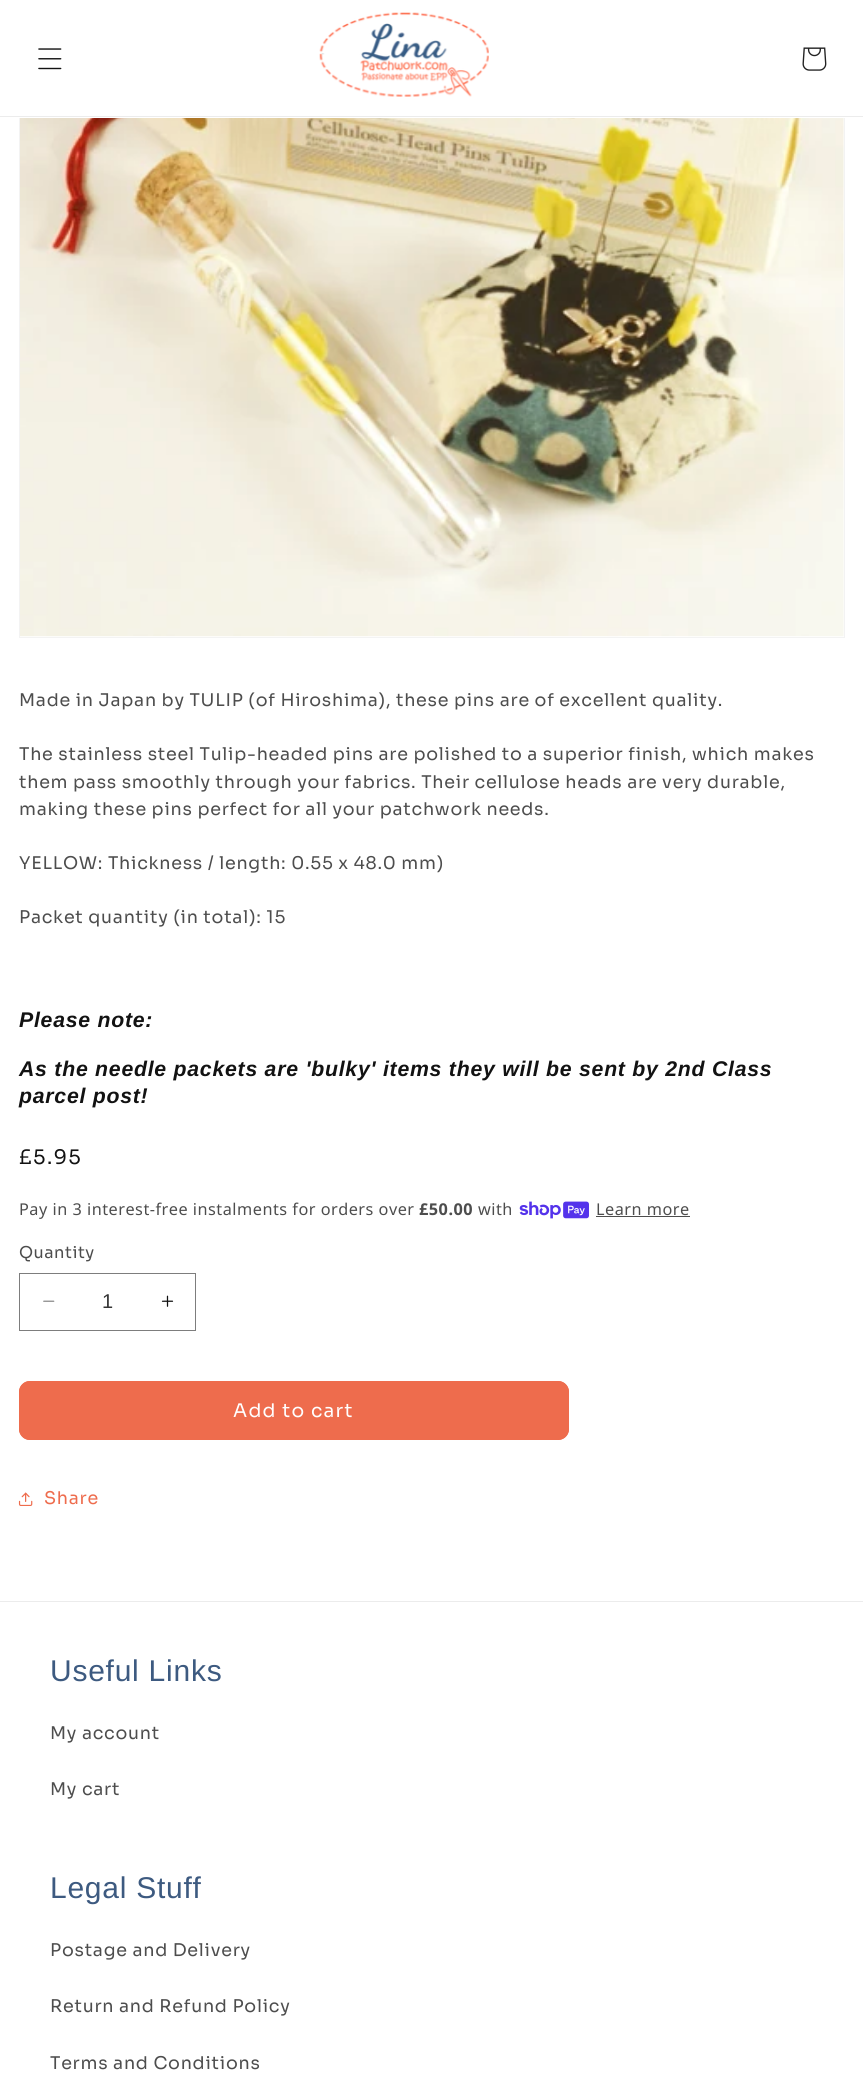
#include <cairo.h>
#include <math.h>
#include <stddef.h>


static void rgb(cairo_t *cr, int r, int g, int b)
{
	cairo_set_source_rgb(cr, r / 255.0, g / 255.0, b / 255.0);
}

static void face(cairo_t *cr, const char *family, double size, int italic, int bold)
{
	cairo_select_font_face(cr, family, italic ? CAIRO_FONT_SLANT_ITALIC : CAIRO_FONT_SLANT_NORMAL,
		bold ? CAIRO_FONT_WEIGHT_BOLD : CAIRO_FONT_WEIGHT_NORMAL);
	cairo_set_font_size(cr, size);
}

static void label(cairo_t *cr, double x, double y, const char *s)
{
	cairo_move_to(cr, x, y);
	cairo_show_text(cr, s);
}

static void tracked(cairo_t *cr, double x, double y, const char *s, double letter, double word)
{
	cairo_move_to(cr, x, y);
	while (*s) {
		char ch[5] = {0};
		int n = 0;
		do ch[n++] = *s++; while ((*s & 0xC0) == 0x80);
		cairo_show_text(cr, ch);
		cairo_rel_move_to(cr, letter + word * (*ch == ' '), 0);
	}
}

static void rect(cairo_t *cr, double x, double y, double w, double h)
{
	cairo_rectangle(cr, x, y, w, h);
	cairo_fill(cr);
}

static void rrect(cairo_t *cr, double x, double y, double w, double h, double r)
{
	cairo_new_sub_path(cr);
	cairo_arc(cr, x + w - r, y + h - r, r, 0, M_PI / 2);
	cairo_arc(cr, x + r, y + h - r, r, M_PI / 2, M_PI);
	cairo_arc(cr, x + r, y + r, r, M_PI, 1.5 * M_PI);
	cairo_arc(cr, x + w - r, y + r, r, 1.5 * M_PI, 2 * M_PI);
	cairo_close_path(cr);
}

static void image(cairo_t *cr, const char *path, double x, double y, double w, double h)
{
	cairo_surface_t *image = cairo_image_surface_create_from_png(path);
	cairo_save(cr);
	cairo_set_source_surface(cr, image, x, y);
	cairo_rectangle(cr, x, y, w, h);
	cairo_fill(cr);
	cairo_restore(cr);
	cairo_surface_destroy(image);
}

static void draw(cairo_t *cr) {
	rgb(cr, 255, 255, 255);
	cairo_paint(cr);
	cairo_rectangle(cr, 19.5, -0.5, 825, 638);
	rgb(cr, 243, 243, 243);
	cairo_set_line_width(cr, 1);
	cairo_stroke(cr);
	rgb(cr, 255, 255, 255);
	rect(cr, 19, 0, 826, 118);
	rgb(cr, 236, 236, 236);
	rect(cr, 0, 116, 863, 1);
	image(cr, "image0.png", 38, 48, 24, 22);
	image(cr, "image1.png", 319, 12, 170, 85);
	image(cr, "image2.png", 802, 47, 25, 24);
	image(cr, "image3.png", 20, 118, 824, 519);
	face(cr, "Sora", 17.5, 0, 0);
	rgb(cr, 77, 77, 77);
	tracked(cr, 19, 706, "Made in Japan by TULIP (of Hiroshima), these pins are of excellent quality.", 0.75, 0);
	tracked(cr, 19, 760, "The stainless steel Tulip-headed pins are polished to a superior finish, which makes", 0.75, 0);
	tracked(cr, 19, 788, "them pass smoothly through your fabrics. Their cellulose heads are very durable,", 0.75, 0);
	tracked(cr, 19, 815, "making these pins perfect for all your patchwork needs.", 0.75, 0);
	tracked(cr, 19, 869, "YELLOW: Thickness / length: 0.55 x 48.0 mm)", 0.75, 0);
	tracked(cr, 19, 923, "Packet quantity (in total): 15", 0.75, 0);
	face(cr, "Liberation Sans", 21.25, 1, 1);
	rgb(cr, 18, 18, 18);
	tracked(cr, 19, 1027, "Please note:", 0.75, 0);
	tracked(cr, 19, 1076, "As the needle packets are 'bulky' items they will be sent by 2nd Class", 0.75, 0);
	tracked(cr, 19, 1103, "parcel post!", 0.75, 0);
	face(cr, "Sora", 20, 0, 0);
	tracked(cr, 19, 1164, "£5.95", 1.5, 0);
	face(cr, "Noto Sans", 16.25, 0, 0);
	rgb(cr, 77, 77, 77);
	tracked(cr, 19, 1215, "Pay in 3 interest-free instalments for orders over", 0.5, 0);
	face(cr, "Noto Sans", 16.25, 0, 1);
	tracked(cr, 419, 1215, "£50.00", 0.5, 0);
	face(cr, "Noto Sans", 16.25, 0, 0);
	tracked(cr, 478, 1215, "with", 0.5, 0);
	image(cr, "image4.png", 519, 1201, 70, 18);
	tracked(cr, 596, 1215, "Learn more", 0.5, 0);
	rect(cr, 596, 1216, 94, 1);
	face(cr, "Sora", 16.25, 0, 0);
	tracked(cr, 19, 1258, "Quantity", 0.5, 0);
	image(cr, "image5.png", 43, 1300, 12, 2);
	image(cr, "image6.png", 161, 1295, 13, 12);
	cairo_rectangle(cr, 19.5, 1273.5, 176, 57);
	rgb(cr, 125, 125, 125);
	cairo_stroke(cr);
	face(cr, "Liberation Sans", 20, 0, 0);
	rgb(cr, 54, 54, 54);
	label(cr, 102, 1308, "1");
	rgb(cr, 238, 108, 77);
	rrect(cr, 19, 1381, 550, 59, 11);
	cairo_fill(cr);
	rrect(cr, 19.5, 1381.5, 549, 58, 10.5);
	cairo_stroke(cr);
	face(cr, "Sora", 18.75, 0, 0);
	rgb(cr, 255, 255, 255);
	tracked(cr, 233, 1417, "Add to cart", 1.25, 0);
	image(cr, "image7.png", 18, 1492, 15, 14);
	face(cr, "Sora", 17.5, 0, 0);
	rgb(cr, 238, 108, 77);
	tracked(cr, 44, 1504, "Share", 0.75, 0);
	rgb(cr, 236, 236, 236);
	rect(cr, 0, 1601, 863, 1);
	face(cr, "Liberation Sans", 30, 0, 0);
	rgb(cr, 61, 90, 128);
	tracked(cr, 50, 1681, "Useful Links", 0.75, 0);
	face(cr, "Sora", 17.5, 0, 0);
	rgb(cr, 77, 77, 77);
	tracked(cr, 50, 1739, "My account", 0.75, 0);
	tracked(cr, 50, 1795, "My cart", 0.75, 0);
	face(cr, "Liberation Sans", 30, 0, 0);
	rgb(cr, 61, 90, 128);
	tracked(cr, 50, 1898, "Legal Stuff", 0.75, 0);
	face(cr, "Sora", 17.5, 0, 0);
	rgb(cr, 77, 77, 77);
	tracked(cr, 50, 1956, "Postage and Delivery", 0.75, 0);
	tracked(cr, 50, 2012, "Return and Refund Policy", 0.75, 0);
	tracked(cr, 50, 2069, "Terms and Conditions", 0.75, 0);
}

int main(void) {
	cairo_surface_t *surface = cairo_image_surface_create(CAIRO_FORMAT_RGB24, 863, 2095);
	cairo_t *cr = cairo_create(surface);
	cairo_font_options_t *options = cairo_font_options_create();
	cairo_font_options_set_hint_metrics(options, CAIRO_HINT_METRICS_OFF);
	cairo_font_options_set_hint_style(options, CAIRO_HINT_STYLE_NONE);
	cairo_set_font_options(cr, options);
	cairo_set_miter_limit(cr, 4);
	draw(cr);
	cairo_surface_write_to_png(surface, "render.png");
	cairo_font_options_destroy(options);
	cairo_destroy(cr);
	cairo_surface_destroy(surface);
	return 0;
}
